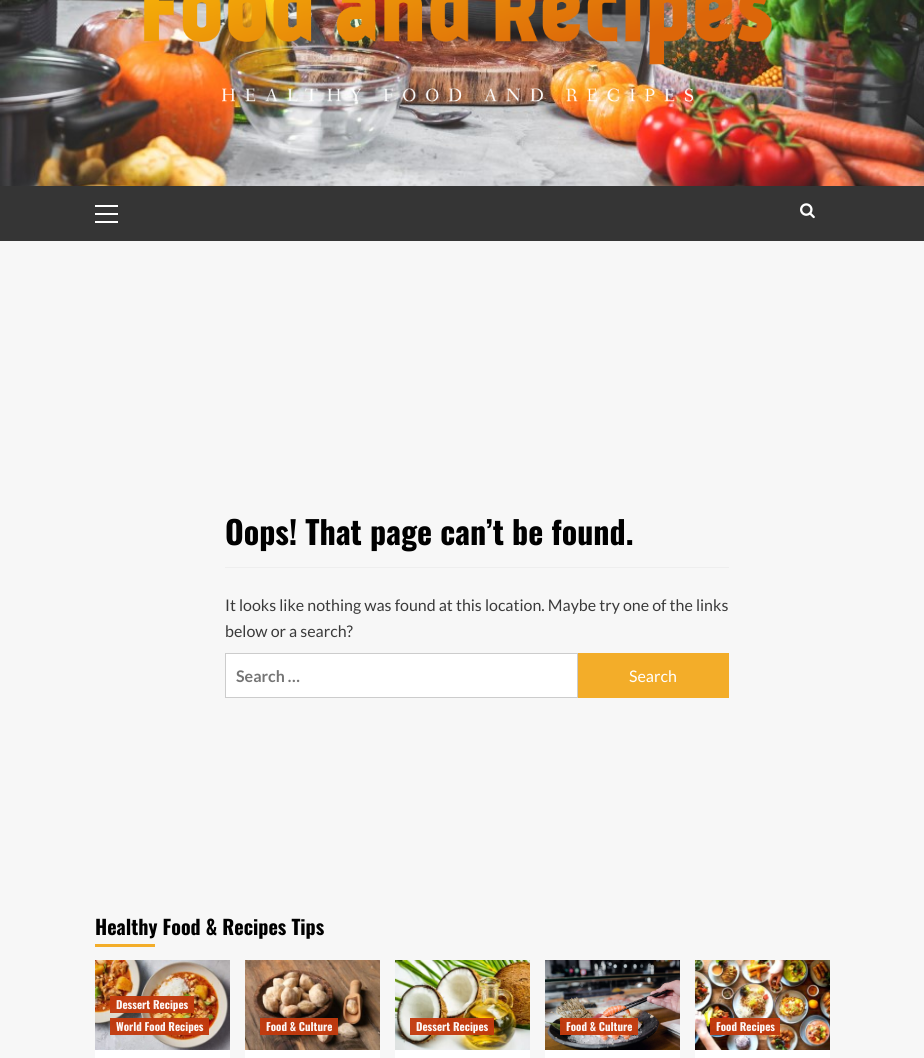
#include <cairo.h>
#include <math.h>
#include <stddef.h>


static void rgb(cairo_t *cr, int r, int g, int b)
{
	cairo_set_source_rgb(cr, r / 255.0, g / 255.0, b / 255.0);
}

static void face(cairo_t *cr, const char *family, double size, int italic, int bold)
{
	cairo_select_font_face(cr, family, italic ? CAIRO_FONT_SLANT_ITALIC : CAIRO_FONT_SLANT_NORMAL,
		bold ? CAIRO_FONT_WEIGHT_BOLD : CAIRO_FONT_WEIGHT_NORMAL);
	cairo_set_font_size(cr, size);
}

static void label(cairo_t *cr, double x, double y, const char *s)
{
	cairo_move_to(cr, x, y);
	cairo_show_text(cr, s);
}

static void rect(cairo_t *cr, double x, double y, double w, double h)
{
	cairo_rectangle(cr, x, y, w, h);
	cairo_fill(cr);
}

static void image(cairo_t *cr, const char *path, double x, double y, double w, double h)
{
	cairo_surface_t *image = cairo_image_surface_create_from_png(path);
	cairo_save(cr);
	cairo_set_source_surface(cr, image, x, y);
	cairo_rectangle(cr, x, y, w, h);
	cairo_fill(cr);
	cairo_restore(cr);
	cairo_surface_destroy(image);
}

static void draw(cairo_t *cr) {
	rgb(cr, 247, 247, 247);
	cairo_paint(cr);
	image(cr, "image0.png", 0, 0, 924, 186);
	image(cr, "image1.png", 143, 0, 629, 102);
	rgb(cr, 53, 53, 53);
	rect(cr, 0, 186, 924, 55);
	rgb(cr, 255, 255, 255);
	rect(cr, 95, 213, 23, 2);
	rect(cr, 95, 205, 23, 2);
	rect(cr, 95, 221, 23, 2);
	image(cr, "image2.png", 800, 203, 15, 16);
	rgb(cr, 238, 238, 238);
	rect(cr, 225, 567, 504, 1);
	face(cr, "Oswald", 32, 0, 1);
	rgb(cr, 0, 0, 0);
	label(cr, 225, 545, "Oops! That page can’t be found.");
	face(cr, "Lato", 16, 0, 0);
	rgb(cr, 58, 58, 58);
	label(cr, 225, 611, "It looks like nothing was found at this location. Maybe try one of the links");
	label(cr, 225, 637, "below or a search?");
	rgb(cr, 255, 255, 255);
	cairo_rectangle(cr, 225.5, 653.5, 352, 44);
	cairo_fill_preserve(cr);
	rgb(cr, 204, 204, 204);
	cairo_set_line_width(cr, 1);
	cairo_stroke(cr);
	face(cr, "Lato", 16, 0, 1);
	rgb(cr, 117, 117, 117);
	label(cr, 236, 682, "Search …");
	rgb(cr, 243, 173, 41);
	rect(cr, 578, 653, 151, 45);
	face(cr, "Lato", 16, 0, 0);
	rgb(cr, 255, 255, 255);
	label(cr, 629, 682, "Search");
	face(cr, "Oswald", 20, 0, 1);
	rgb(cr, 0, 0, 0);
	label(cr, 95, 935, "Healthy Food & Recipes Tips");
	rgb(cr, 243, 173, 41);
	rect(cr, 95, 944, 60, 3);
	rgb(cr, 255, 255, 255);
	rect(cr, 95, 1050, 135, 8);
	image(cr, "image3.png", 95, 960, 135, 90);
	cairo_set_source_rgba(cr, 0.761, 0.231, 0.055, 0.96);
	rect(cr, 110, 996, 84, 17);
	face(cr, "Oswald", 11, 0, 1);
	rgb(cr, 253, 247, 246);
	label(cr, 116, 1009, "Dessert Recipes");
	cairo_set_source_rgba(cr, 0.761, 0.231, 0.055, 0.96);
	rect(cr, 110, 1018, 99, 17);
	rgb(cr, 253, 247, 246);
	label(cr, 116, 1031, "World Food Recipes");
	rgb(cr, 255, 255, 255);
	rect(cr, 245, 1050, 135, 8);
	image(cr, "image4.png", 245, 960, 135, 90);
	cairo_set_source_rgba(cr, 0.761, 0.231, 0.055, 0.96);
	rect(cr, 260, 1018, 78, 17);
	rgb(cr, 253, 247, 246);
	label(cr, 266, 1031, "Food & Culture");
	rgb(cr, 255, 255, 255);
	rect(cr, 395, 1050, 135, 8);
	image(cr, "image5.png", 395, 960, 135, 90);
	cairo_set_source_rgba(cr, 0.761, 0.231, 0.055, 0.96);
	rect(cr, 410, 1018, 84, 17);
	rgb(cr, 253, 247, 246);
	label(cr, 416, 1031, "Dessert Recipes");
	rgb(cr, 255, 255, 255);
	rect(cr, 545, 1050, 135, 8);
	image(cr, "image6.png", 545, 960, 135, 90);
	cairo_set_source_rgba(cr, 0.761, 0.231, 0.055, 0.96);
	rect(cr, 560, 1018, 78, 17);
	rgb(cr, 253, 247, 246);
	label(cr, 566, 1031, "Food & Culture");
	rgb(cr, 255, 255, 255);
	rect(cr, 695, 1050, 135, 8);
	image(cr, "image7.png", 695, 960, 135, 90);
	cairo_set_source_rgba(cr, 0.761, 0.231, 0.055, 0.96);
	rect(cr, 710, 1018, 70, 17);
	rgb(cr, 253, 247, 246);
	label(cr, 716, 1031, "Food Recipes");
}

int main(void) {
	cairo_surface_t *surface = cairo_image_surface_create(CAIRO_FORMAT_RGB24, 924, 1058);
	cairo_t *cr = cairo_create(surface);
	cairo_font_options_t *options = cairo_font_options_create();
	cairo_font_options_set_hint_metrics(options, CAIRO_HINT_METRICS_OFF);
	cairo_font_options_set_hint_style(options, CAIRO_HINT_STYLE_NONE);
	cairo_set_font_options(cr, options);
	cairo_set_miter_limit(cr, 4);
	draw(cr);
	cairo_surface_write_to_png(surface, "render.png");
	cairo_font_options_destroy(options);
	cairo_destroy(cr);
	cairo_surface_destroy(surface);
	return 0;
}
